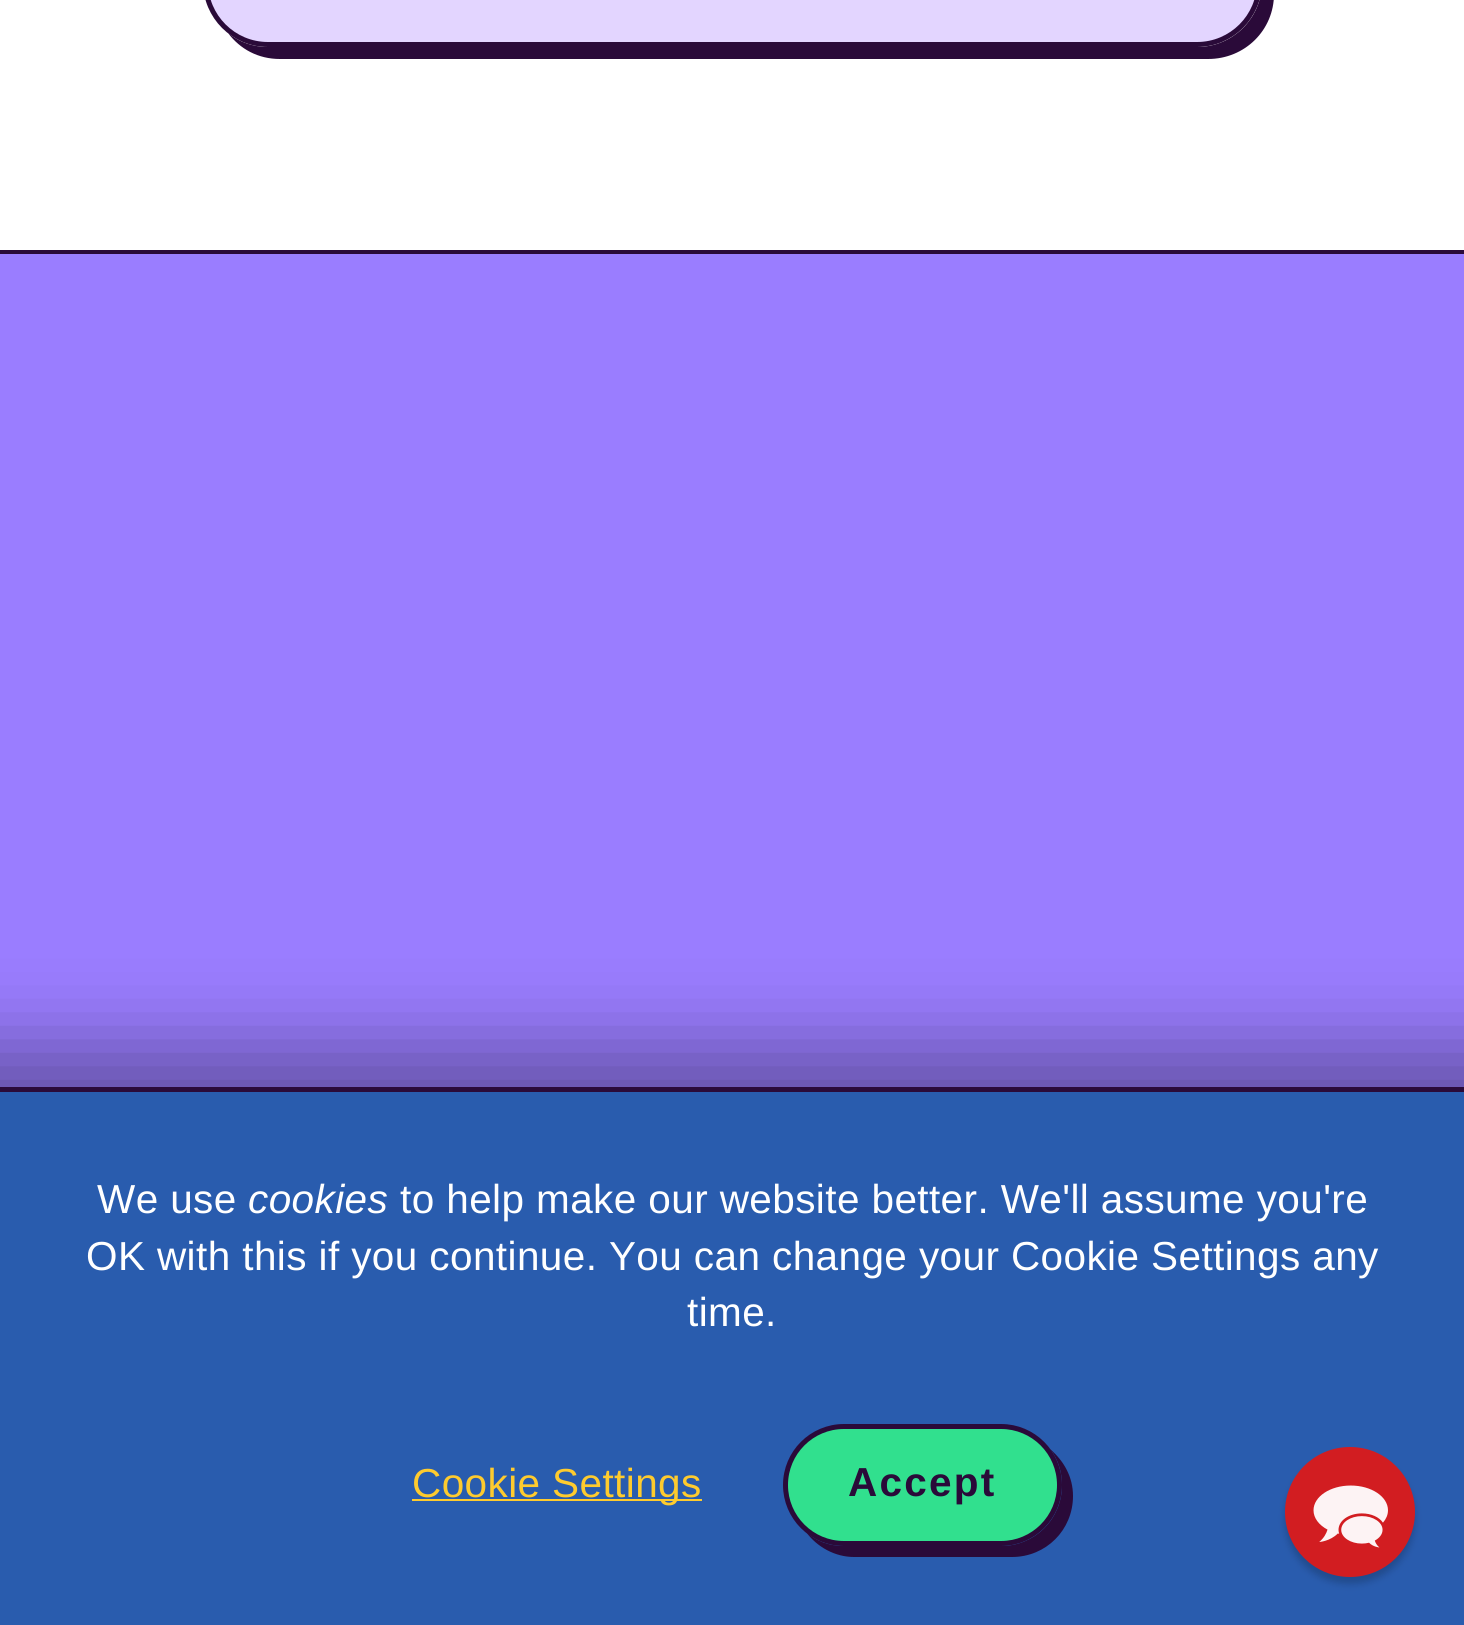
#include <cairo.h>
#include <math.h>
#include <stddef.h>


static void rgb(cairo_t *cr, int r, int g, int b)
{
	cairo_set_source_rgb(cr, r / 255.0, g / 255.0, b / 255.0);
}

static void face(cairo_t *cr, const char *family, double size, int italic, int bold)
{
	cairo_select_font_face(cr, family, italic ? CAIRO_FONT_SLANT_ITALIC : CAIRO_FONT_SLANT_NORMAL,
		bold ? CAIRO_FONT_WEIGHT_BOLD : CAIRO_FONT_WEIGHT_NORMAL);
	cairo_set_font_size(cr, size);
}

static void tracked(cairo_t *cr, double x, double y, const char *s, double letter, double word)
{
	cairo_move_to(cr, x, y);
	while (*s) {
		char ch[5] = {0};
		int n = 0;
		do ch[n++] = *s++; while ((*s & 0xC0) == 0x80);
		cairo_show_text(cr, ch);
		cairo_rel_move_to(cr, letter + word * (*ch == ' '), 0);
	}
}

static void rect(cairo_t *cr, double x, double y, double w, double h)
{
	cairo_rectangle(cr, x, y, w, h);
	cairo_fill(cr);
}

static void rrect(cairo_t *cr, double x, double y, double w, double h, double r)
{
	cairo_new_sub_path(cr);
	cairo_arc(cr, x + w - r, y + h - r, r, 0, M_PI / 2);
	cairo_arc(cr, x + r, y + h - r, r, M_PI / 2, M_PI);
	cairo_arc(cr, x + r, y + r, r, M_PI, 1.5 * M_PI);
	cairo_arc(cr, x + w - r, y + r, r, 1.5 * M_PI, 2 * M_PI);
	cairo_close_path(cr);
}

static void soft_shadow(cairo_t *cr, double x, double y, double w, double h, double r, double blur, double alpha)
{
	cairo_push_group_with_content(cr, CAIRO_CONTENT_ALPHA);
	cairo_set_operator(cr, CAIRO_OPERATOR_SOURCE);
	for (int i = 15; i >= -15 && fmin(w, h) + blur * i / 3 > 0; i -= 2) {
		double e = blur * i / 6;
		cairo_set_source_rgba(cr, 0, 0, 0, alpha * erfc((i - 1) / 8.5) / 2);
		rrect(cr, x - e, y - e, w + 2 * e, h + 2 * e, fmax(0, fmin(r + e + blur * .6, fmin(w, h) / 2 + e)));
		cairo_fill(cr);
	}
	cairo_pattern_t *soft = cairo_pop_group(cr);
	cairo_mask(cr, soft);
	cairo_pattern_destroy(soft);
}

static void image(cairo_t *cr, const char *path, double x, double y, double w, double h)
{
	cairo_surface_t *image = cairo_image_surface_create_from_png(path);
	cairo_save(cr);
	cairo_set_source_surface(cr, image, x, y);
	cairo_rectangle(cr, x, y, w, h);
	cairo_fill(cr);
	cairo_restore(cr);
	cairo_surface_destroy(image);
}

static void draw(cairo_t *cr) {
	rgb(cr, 42, 10, 57);
	cairo_paint(cr);
	rgb(cr, 255, 255, 255);
	rect(cr, 0, 0, 1464, 250);
	rgb(cr, 42, 10, 57);
	cairo_new_path(cr);
	cairo_move_to(cr, 228, 33);
	cairo_curve_to(cr, 240, 49, 258, 59, 280, 59);
	cairo_line_to(cr, 1208, 59);
	cairo_curve_to(cr, 1245, 59, 1274, 30, 1274, -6);
	cairo_curve_to(cr, 1274, -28, 1264, -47, 1248, -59);
	cairo_curve_to(cr, 1257, -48, 1262, -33, 1262, -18);
	cairo_curve_to(cr, 1262, 18, 1233, 47, 1197, 47);
	cairo_line_to(cr, 268, 47);
	cairo_curve_to(cr, 253, 47, 239, 42, 228, 33);
	cairo_close_path(cr);
	cairo_fill(cr);
	rgb(cr, 227, 213, 255);
	rrect(cr, 205.5, -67.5, 1054, 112, 62.5);
	cairo_fill_preserve(cr);
	rgb(cr, 42, 10, 57);
	cairo_set_line_width(cr, 5);
	cairo_stroke(cr);
	rgb(cr, 154, 125, 255);
	rect(cr, 0, 254, 1464, 833);
	rgb(cr, 0, 0, 0);
	soft_shadow(cr, -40, 1046, 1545, 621, 0, 40.5, 0.35);
	rgb(cr, 41, 92, 174);
	rect(cr, 0, 1092, 1464, 533);
	rgb(cr, 42, 10, 57);
	rect(cr, 0, 1087, 1464, 5);
	face(cr, "Liberation Sans", 40.5, 0, 0);
	rgb(cr, 255, 255, 255);
	tracked(cr, 97, 1213, "We use", 0.4, 0);
	face(cr, "Liberation Sans", 40.5, 1, 0);
	tracked(cr, 248, 1213, "cookies", 0.4, 0);
	face(cr, "Liberation Sans", 40.5, 0, 0);
	tracked(cr, 400, 1213, "to help make our website better. We'll assume you're", 0.4, 0);
	tracked(cr, 86, 1270, "OK with this if you continue. You can change your Cookie Settings any", 0.4, 0);
	tracked(cr, 687, 1326, "time.", 0.4, 0);
	rgb(cr, 254, 203, 46);
	rect(cr, 412, 1499, 290, 2);
	tracked(cr, 412, 1497, "Cookie Settings", 0.4, 0);
	rgb(cr, 42, 10, 57);
	cairo_new_path(cr);
	cairo_move_to(cr, 806, 1532);
	cairo_curve_to(cr, 817, 1547, 835, 1557, 854, 1557);
	cairo_line_to(cr, 1012, 1557);
	cairo_curve_to(cr, 1046, 1557, 1073, 1530, 1073, 1496);
	cairo_curve_to(cr, 1073, 1477, 1064, 1461, 1050, 1449);
	cairo_curve_to(cr, 1058, 1459, 1062, 1472, 1062, 1485);
	cairo_curve_to(cr, 1062, 1519, 1035, 1546, 1001, 1546);
	cairo_line_to(cr, 844, 1546);
	cairo_curve_to(cr, 829, 1546, 816, 1541, 806, 1532);
	cairo_close_path(cr);
	cairo_fill(cr);
	rgb(cr, 49, 224, 142);
	rrect(cr, 785.5, 1426.5, 274, 117, 58.5);
	cairo_fill_preserve(cr);
	rgb(cr, 42, 10, 57);
	cairo_stroke(cr);
	face(cr, "Liberation Sans", 40.5, 0, 1);
	tracked(cr, 848, 1496, "Accept", 2.25, 0);
	rgb(cr, 2, 5, 9);
	soft_shadow(cr, 1285, 1454, 130, 130, 65, 3.5, 0.2);
	rgb(cr, 210, 29, 33);
	cairo_arc(cr, 1350, 1512, 65, 0, 2 * M_PI);
	cairo_fill(cr);
	image(cr, "image0.png", 1313, 1485, 75, 63);
}

int main(void) {
	cairo_surface_t *surface = cairo_image_surface_create(CAIRO_FORMAT_RGB24, 1464, 1625);
	cairo_t *cr = cairo_create(surface);
	cairo_font_options_t *options = cairo_font_options_create();
	cairo_font_options_set_hint_metrics(options, CAIRO_HINT_METRICS_OFF);
	cairo_font_options_set_hint_style(options, CAIRO_HINT_STYLE_NONE);
	cairo_set_font_options(cr, options);
	cairo_set_miter_limit(cr, 4);
	draw(cr);
	cairo_surface_write_to_png(surface, "render.png");
	cairo_font_options_destroy(options);
	cairo_destroy(cr);
	cairo_surface_destroy(surface);
	return 0;
}
